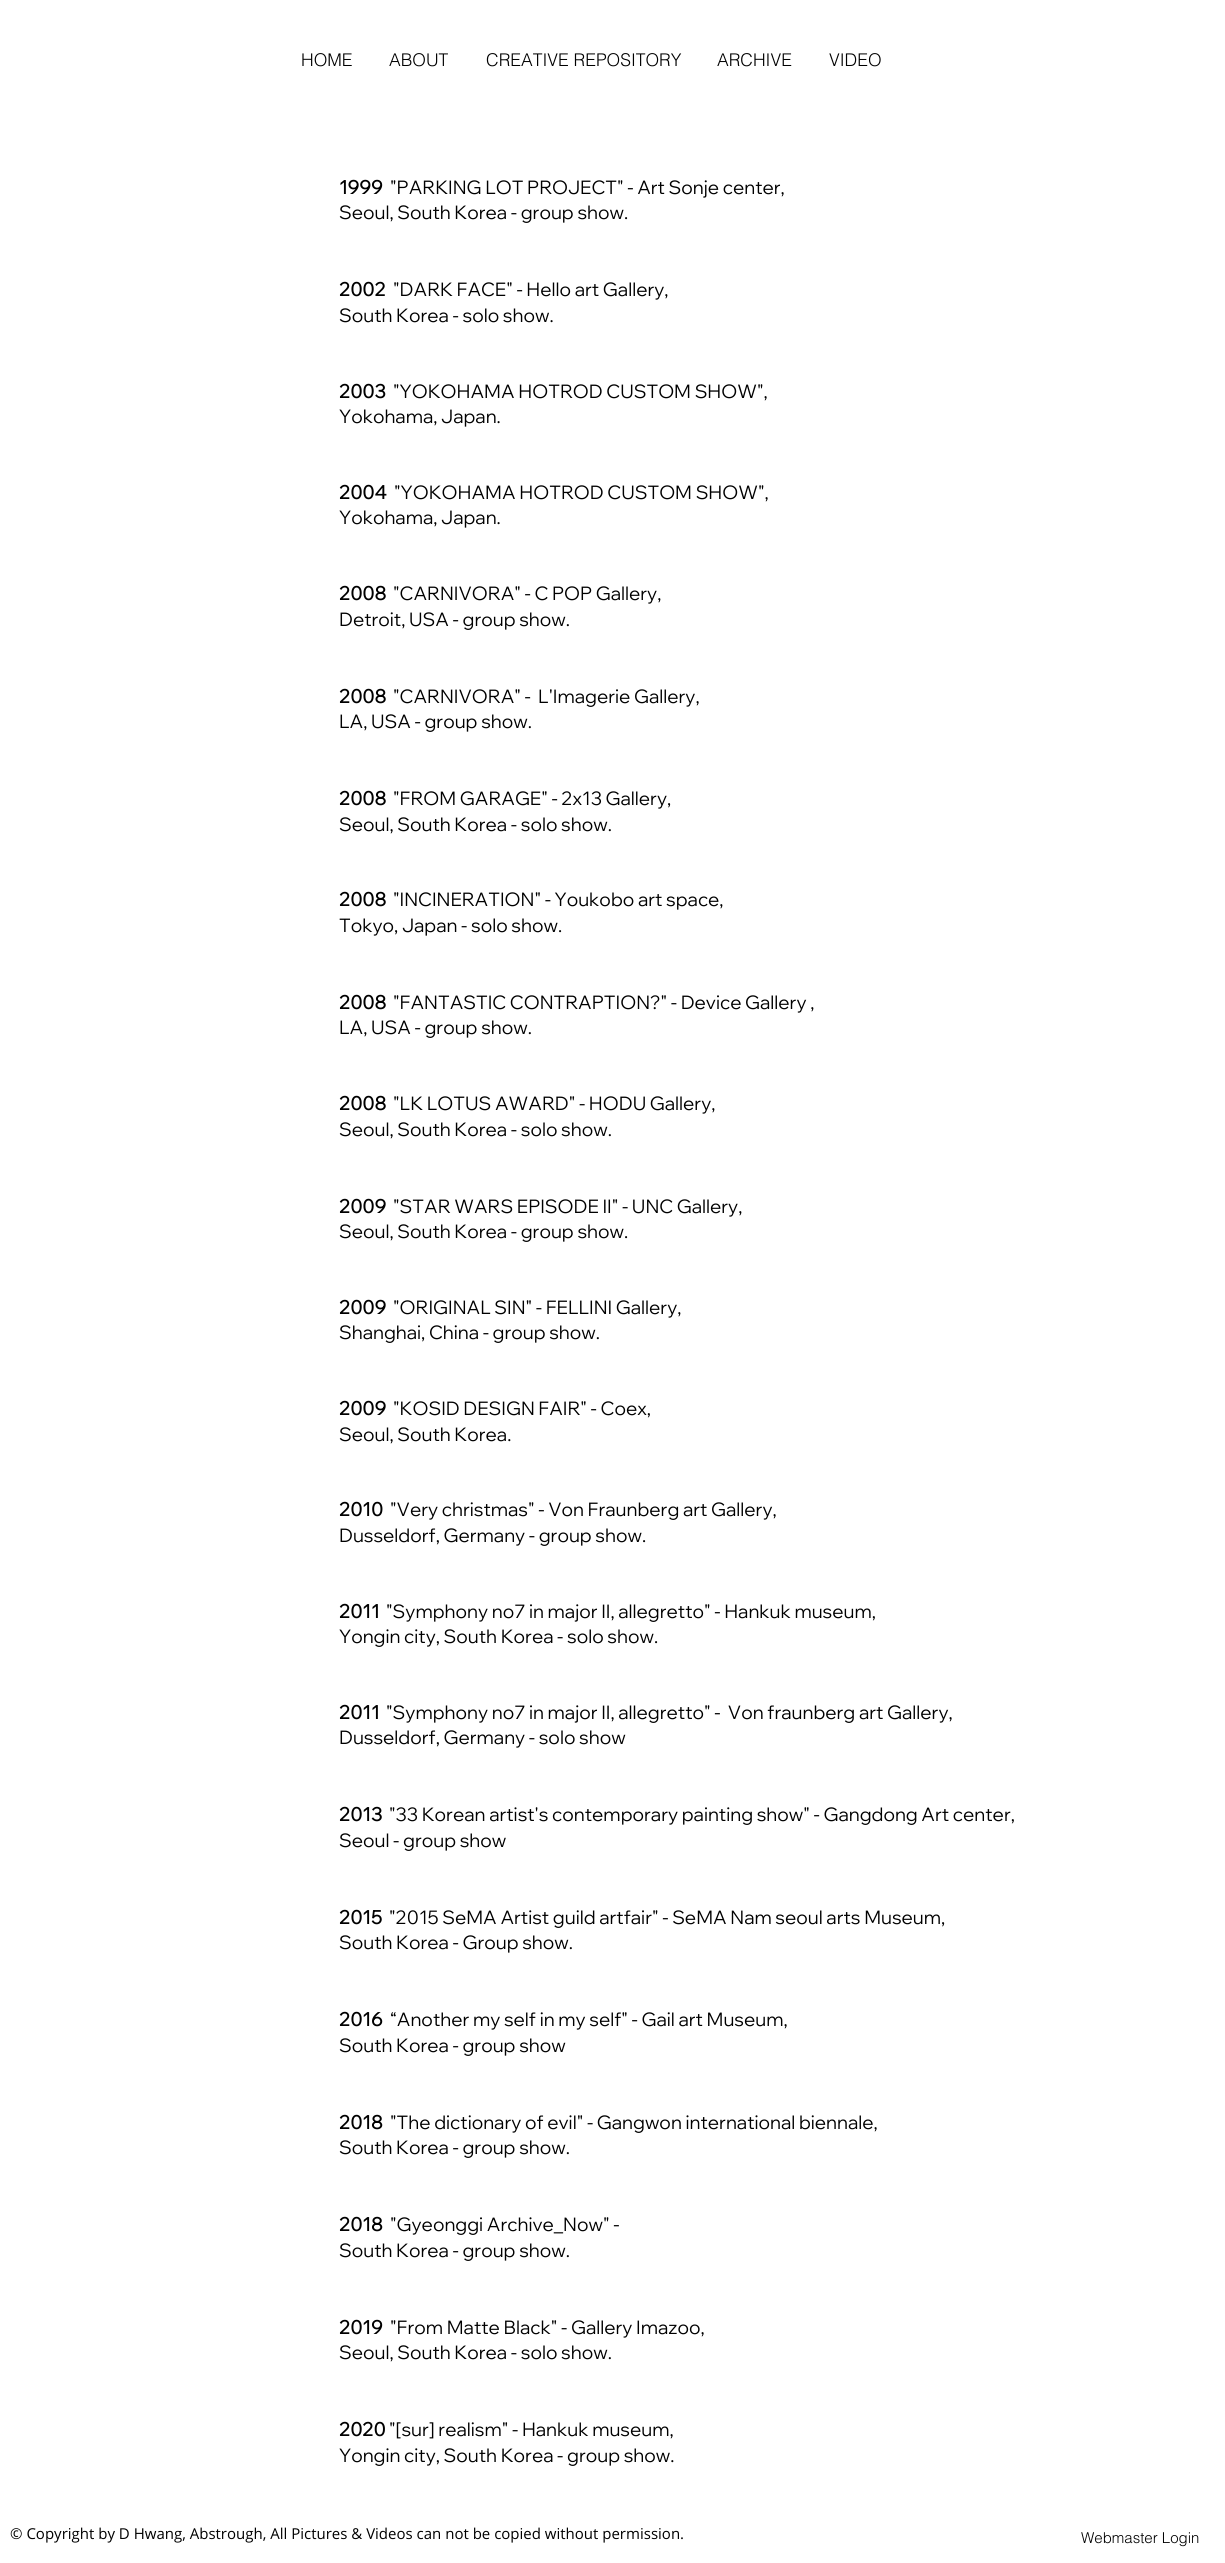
#include <cairo.h>
#include <math.h>
#include <stddef.h>


static void rgb(cairo_t *cr, int r, int g, int b)
{
	cairo_set_source_rgb(cr, r / 255.0, g / 255.0, b / 255.0);
}

static void face(cairo_t *cr, const char *family, double size, int italic, int bold)
{
	cairo_select_font_face(cr, family, italic ? CAIRO_FONT_SLANT_ITALIC : CAIRO_FONT_SLANT_NORMAL,
		bold ? CAIRO_FONT_WEIGHT_BOLD : CAIRO_FONT_WEIGHT_NORMAL);
	cairo_set_font_size(cr, size);
}

static void label(cairo_t *cr, double x, double y, const char *s)
{
	cairo_move_to(cr, x, y);
	cairo_show_text(cr, s);
}

static void draw(cairo_t *cr) {
	rgb(cr, 255, 255, 255);
	cairo_paint(cr);
	face(cr, "helvetica Light", 17.5, 0, 0);
	rgb(cr, 0, 0, 0);
	label(cr, 301, 66, "HOME");
	label(cr, 389, 66, "ABOUT");
	label(cr, 486, 66, "CREATIVE REPOSITORY");
	label(cr, 717, 66, "ARCHIVE");
	label(cr, 829, 66, "VIDEO");
	face(cr, "Wix Madefor Display", 18.75, 0, 1);
	label(cr, 339, 194, "1999");
	face(cr, "Wix Madefor Display", 18.75, 0, 0);
	label(cr, 390, 194, "\"PARKING LOT PROJECT\" - Art Sonje center,");
	label(cr, 339, 219, "Seoul, South Korea - group show.");
	face(cr, "Wix Madefor Display", 18.75, 0, 1);
	label(cr, 339, 296, "2002");
	face(cr, "Wix Madefor Display", 18.75, 0, 0);
	label(cr, 393, 296, "\"DARK FACE\" - Hello art Gallery,");
	label(cr, 339, 322, "South Korea - solo show.");
	face(cr, "Wix Madefor Display", 18.75, 0, 1);
	label(cr, 339, 398, "2003");
	face(cr, "Wix Madefor Display", 18.75, 0, 0);
	label(cr, 393, 398, "\"YOKOHAMA HOTROD CUSTOM SHOW\",");
	label(cr, 339, 423, "Yokohama, Japan.");
	face(cr, "Wix Madefor Display", 18.75, 0, 1);
	label(cr, 339, 499, "2004");
	face(cr, "Wix Madefor Display", 18.75, 0, 0);
	label(cr, 394, 499, "\"YOKOHAMA HOTROD CUSTOM SHOW\",");
	label(cr, 339, 524, "Yokohama, Japan.");
	face(cr, "Wix Madefor Display", 18.75, 0, 1);
	label(cr, 339, 600, "2008");
	face(cr, "Wix Madefor Display", 18.75, 0, 0);
	label(cr, 393, 600, "\"CARNIVORA\" - C POP Gallery,");
	label(cr, 339, 626, "Detroit, USA - group show.");
	face(cr, "Wix Madefor Display", 18.75, 0, 1);
	label(cr, 339, 703, "2008");
	face(cr, "Wix Madefor Display", 18.75, 0, 0);
	label(cr, 393, 703, "\"CARNIVORA\" -  L'Imagerie Gallery,");
	label(cr, 339, 728, "LA, USA - group show.");
	face(cr, "Wix Madefor Display", 18.75, 0, 1);
	label(cr, 339, 805, "2008");
	face(cr, "Wix Madefor Display", 18.75, 0, 0);
	label(cr, 393, 805, "\"FROM GARAGE\" - 2x13 Gallery,");
	label(cr, 339, 831, "Seoul, South Korea - solo show.");
	face(cr, "Wix Madefor Display", 18.75, 0, 1);
	label(cr, 339, 906, "2008");
	face(cr, "Wix Madefor Display", 18.75, 0, 0);
	label(cr, 393, 906, "\"INCINERATION\" - Youkobo art space,");
	label(cr, 339, 932, "Tokyo, Japan - solo show.");
	face(cr, "Wix Madefor Display", 18.75, 0, 1);
	label(cr, 339, 1009, "2008");
	face(cr, "Wix Madefor Display", 18.75, 0, 0);
	label(cr, 393, 1009, "\"FANTASTIC CONTRAPTION?\" - Device Gallery ,");
	label(cr, 339, 1034, "LA, USA - group show.");
	face(cr, "Wix Madefor Display", 18.75, 0, 1);
	label(cr, 339, 1110, "2008");
	face(cr, "Wix Madefor Display", 18.75, 0, 0);
	label(cr, 393, 1110, "\"LK LOTUS AWARD\" - HODU Gallery,");
	label(cr, 339, 1136, "Seoul, South Korea - solo show.");
	face(cr, "Wix Madefor Display", 18.75, 0, 1);
	label(cr, 339, 1213, "2009");
	face(cr, "Wix Madefor Display", 18.75, 0, 0);
	label(cr, 393, 1213, "\"STAR WARS EPISODE II\" - UNC Gallery,");
	label(cr, 339, 1238, "Seoul, South Korea - group show.");
	face(cr, "Wix Madefor Display", 18.75, 0, 1);
	label(cr, 339, 1314, "2009");
	face(cr, "Wix Madefor Display", 18.75, 0, 0);
	label(cr, 393, 1314, "\"ORIGINAL SIN\" - FELLINI Gallery,");
	label(cr, 339, 1339, "Shanghai, China - group show.");
	face(cr, "Wix Madefor Display", 18.75, 0, 1);
	label(cr, 339, 1415, "2009");
	face(cr, "Wix Madefor Display", 18.75, 0, 0);
	label(cr, 393, 1415, "\"KOSID DESIGN FAIR\" - Coex,");
	label(cr, 339, 1441, "Seoul, South Korea.");
	face(cr, "Wix Madefor Display", 18.75, 0, 1);
	label(cr, 339, 1516, "2010");
	face(cr, "Wix Madefor Display", 18.75, 0, 0);
	label(cr, 390, 1516, "\"Very christmas\" - Von Fraunberg art Gallery,");
	label(cr, 339, 1542, "Dusseldorf, Germany - group show.");
	face(cr, "Wix Madefor Display", 18.75, 0, 1);
	label(cr, 339, 1618, "2011");
	face(cr, "Wix Madefor Display", 18.75, 0, 0);
	label(cr, 386, 1618, "\"Symphony no7 in major II, allegretto\" - Hankuk museum,");
	label(cr, 339, 1643, "Yongin city, South Korea - solo show.");
	face(cr, "Wix Madefor Display", 18.75, 0, 1);
	label(cr, 339, 1719, "2011");
	face(cr, "Wix Madefor Display", 18.75, 0, 0);
	label(cr, 386, 1719, "\"Symphony no7 in major II, allegretto\" -  Von fraunberg art Gallery,");
	label(cr, 339, 1744, "Dusseldorf, Germany - solo show");
	face(cr, "Wix Madefor Display", 18.75, 0, 1);
	label(cr, 339, 1821, "2013");
	face(cr, "Wix Madefor Display", 18.75, 0, 0);
	label(cr, 389, 1821, "\"33 Korean artist's contemporary painting show\" - Gangdong Art center,");
	label(cr, 339, 1847, "Seoul - group show");
	face(cr, "Wix Madefor Display", 18.75, 0, 1);
	label(cr, 339, 1924, "2015");
	face(cr, "Wix Madefor Display", 18.75, 0, 0);
	label(cr, 389, 1924, "\"2015 SeMA Artist guild artfair\" - SeMA Nam seoul arts Museum,");
	label(cr, 339, 1949, "South Korea - Group show.");
	face(cr, "Wix Madefor Display", 18.75, 0, 1);
	label(cr, 339, 2026, "2016");
	face(cr, "Wix Madefor Display", 18.75, 0, 0);
	label(cr, 390, 2026, "“Another my self in my self\" - Gail art Museum,");
	label(cr, 339, 2052, "South Korea - group show");
	face(cr, "Wix Madefor Display", 18.75, 0, 1);
	label(cr, 339, 2129, "2018");
	face(cr, "Wix Madefor Display", 18.75, 0, 0);
	label(cr, 390, 2129, "\"The dictionary of evil\" - Gangwon international biennale,");
	label(cr, 339, 2154, "South Korea - group show.");
	face(cr, "Wix Madefor Display", 18.75, 0, 1);
	label(cr, 339, 2231, "2018");
	face(cr, "Wix Madefor Display", 18.75, 0, 0);
	label(cr, 390, 2231, "\"Gyeonggi Archive_Now\" -");
	label(cr, 339, 2257, "South Korea - group show.");
	face(cr, "Wix Madefor Display", 18.75, 0, 1);
	label(cr, 339, 2334, "2019");
	face(cr, "Wix Madefor Display", 18.75, 0, 0);
	label(cr, 390, 2334, "\"From Matte Black\" - Gallery Imazoo,");
	label(cr, 339, 2359, "Seoul, South Korea - solo show.");
	face(cr, "Wix Madefor Display", 18.75, 0, 1);
	label(cr, 339, 2436, "2020");
	face(cr, "Wix Madefor Display", 18.75, 0, 0);
	label(cr, 389, 2436, "\"[sur] realism\" - Hankuk museum,");
	label(cr, 339, 2462, "Yongin city, South Korea - group show.");
	face(cr, "Open Sans", 15, 0, 0);
	label(cr, 10, 2539, "© Copyright by D Hwang, Abstrough, All Pictures & Videos can not be copied without permission.");
	face(cr, "helvetica Light", 15, 0, 0);
	label(cr, 1081, 2543, "Webmaster Login");
}

int main(void) {
	cairo_surface_t *surface = cairo_image_surface_create(CAIRO_FORMAT_RGB24, 1225, 2563);
	cairo_t *cr = cairo_create(surface);
	cairo_font_options_t *options = cairo_font_options_create();
	cairo_font_options_set_hint_metrics(options, CAIRO_HINT_METRICS_OFF);
	cairo_font_options_set_hint_style(options, CAIRO_HINT_STYLE_NONE);
	cairo_set_font_options(cr, options);
	cairo_set_miter_limit(cr, 4);
	draw(cr);
	cairo_surface_write_to_png(surface, "render.png");
	cairo_font_options_destroy(options);
	cairo_destroy(cr);
	cairo_surface_destroy(surface);
	return 0;
}
